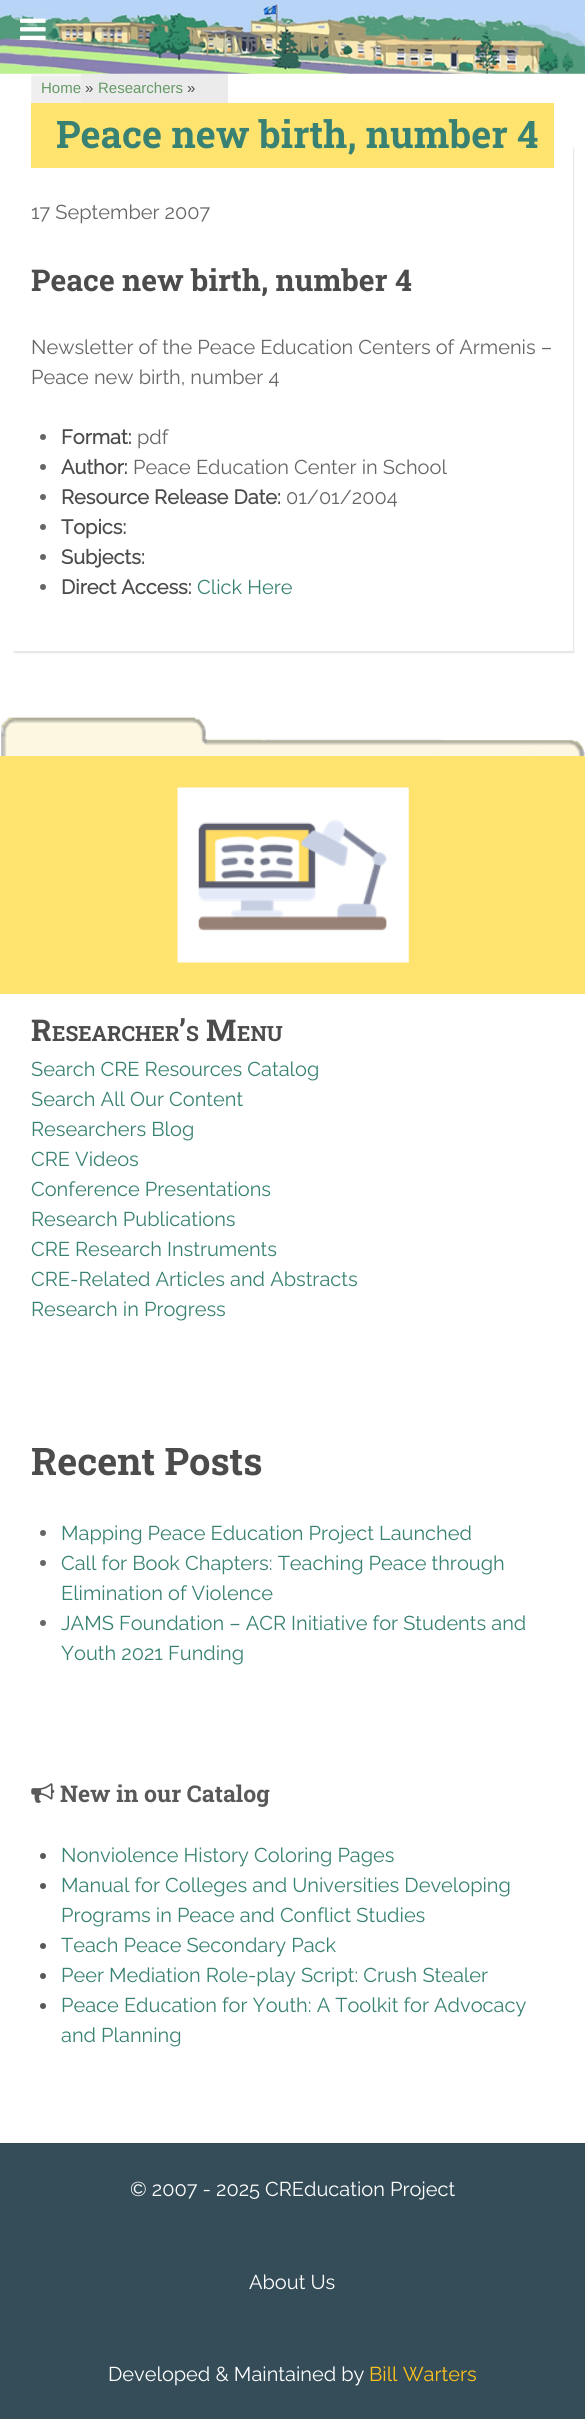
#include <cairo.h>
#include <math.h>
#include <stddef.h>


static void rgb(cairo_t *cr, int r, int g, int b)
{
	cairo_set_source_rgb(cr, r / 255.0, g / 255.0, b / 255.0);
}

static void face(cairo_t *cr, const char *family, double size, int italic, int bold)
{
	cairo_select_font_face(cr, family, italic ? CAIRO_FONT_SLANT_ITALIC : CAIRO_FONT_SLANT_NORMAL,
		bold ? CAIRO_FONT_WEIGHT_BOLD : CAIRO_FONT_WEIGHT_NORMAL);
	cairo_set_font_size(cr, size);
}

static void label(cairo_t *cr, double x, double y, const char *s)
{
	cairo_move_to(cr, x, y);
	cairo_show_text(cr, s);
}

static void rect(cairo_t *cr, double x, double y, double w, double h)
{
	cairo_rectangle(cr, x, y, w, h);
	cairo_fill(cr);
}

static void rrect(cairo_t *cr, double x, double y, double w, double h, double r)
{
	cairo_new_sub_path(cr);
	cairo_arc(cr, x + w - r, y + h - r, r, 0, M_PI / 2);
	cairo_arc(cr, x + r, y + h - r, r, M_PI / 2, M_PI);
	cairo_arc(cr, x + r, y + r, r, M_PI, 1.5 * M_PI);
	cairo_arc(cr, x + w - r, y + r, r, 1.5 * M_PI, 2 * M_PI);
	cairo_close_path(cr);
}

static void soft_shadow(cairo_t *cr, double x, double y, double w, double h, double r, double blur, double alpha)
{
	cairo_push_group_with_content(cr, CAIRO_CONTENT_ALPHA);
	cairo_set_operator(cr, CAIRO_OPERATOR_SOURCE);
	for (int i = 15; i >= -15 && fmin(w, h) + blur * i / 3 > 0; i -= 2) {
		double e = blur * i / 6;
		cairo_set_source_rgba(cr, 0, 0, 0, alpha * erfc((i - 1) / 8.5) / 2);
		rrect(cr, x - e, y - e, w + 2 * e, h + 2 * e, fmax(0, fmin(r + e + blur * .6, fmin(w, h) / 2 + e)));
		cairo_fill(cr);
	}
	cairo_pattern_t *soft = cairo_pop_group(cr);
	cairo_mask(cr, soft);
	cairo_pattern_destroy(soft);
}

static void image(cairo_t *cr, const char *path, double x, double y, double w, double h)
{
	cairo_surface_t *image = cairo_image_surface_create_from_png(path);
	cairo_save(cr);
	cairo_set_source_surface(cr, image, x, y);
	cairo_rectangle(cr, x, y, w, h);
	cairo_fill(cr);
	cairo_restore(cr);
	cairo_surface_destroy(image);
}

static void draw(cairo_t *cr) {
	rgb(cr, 255, 255, 255);
	cairo_paint(cr);
	image(cr, "image0.png", 0, 0, 585, 74);
	image(cr, "image1.png", 20, 18, 26, 22);
	image(cr, "image2.png", 31, 74, 50, 29);
	face(cr, "Liberation Sans", 15, 0, 0);
	rgb(cr, 102, 153, 102);
	label(cr, 41, 93, "Home");
	rgb(cr, 235, 235, 235);
	rect(cr, 81, 74, 147, 29);
	rgb(cr, 76, 76, 76);
	label(cr, 85, 93, "»");
	rgb(cr, 102, 153, 102);
	label(cr, 98, 93, "Researchers");
	rgb(cr, 76, 76, 76);
	label(cr, 187, 93, "»");
	cairo_save(cr);
	cairo_set_fill_rule(cr, CAIRO_FILL_RULE_EVEN_ODD);
	cairo_new_path(cr);
	cairo_move_to(cr, 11, 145);
	cairo_line_to(cr, 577, 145);
	cairo_line_to(cr, 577, 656);
	cairo_line_to(cr, 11, 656);
	cairo_close_path(cr);
	cairo_move_to(cr, 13, 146);
	cairo_line_to(cr, 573, 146);
	cairo_line_to(cr, 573, 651);
	cairo_line_to(cr, 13, 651);
	cairo_close_path(cr);
	cairo_clip(cr);
	rgb(cr, 0, 0, 0);
	soft_shadow(cr, 14, 148, 560, 505, 0, 0.5, 0.1);
	cairo_restore(cr);
	rgb(cr, 255, 227, 111);
	rect(cr, 31, 103, 523, 65);
	face(cr, "Roboto Slab", 38, 0, 1);
	rgb(cr, 57, 130, 115);
	label(cr, 56, 148, "Peace new birth, number 4");
	face(cr, "Raleway Thin", 20, 0, 0);
	rgb(cr, 102, 102, 102);
	label(cr, 31, 219, "17 September 2007");
	face(cr, "Roboto Slab", 30, 0, 1);
	rgb(cr, 76, 76, 76);
	label(cr, 31, 291, "Peace new birth, number 4");
	face(cr, "Raleway Thin", 20, 0, 0);
	rgb(cr, 102, 102, 102);
	label(cr, 31, 354, "Newsletter of the Peace Education Centers of Armenis –");
	label(cr, 31, 384, "Peace new birth, number 4");
	cairo_new_path(cr);
	cairo_arc(cr, 43, 437, 3, 0, 2 * M_PI);
	cairo_fill(cr);
	face(cr, "Raleway", 20, 0, 1);
	rgb(cr, 76, 76, 76);
	label(cr, 61, 444, "Format:");
	face(cr, "Raleway Thin", 20, 0, 0);
	rgb(cr, 102, 102, 102);
	label(cr, 137, 444, "pdf");
	cairo_new_path(cr);
	cairo_arc(cr, 43, 467, 3, 0, 2 * M_PI);
	cairo_fill(cr);
	face(cr, "Raleway", 20, 0, 1);
	rgb(cr, 76, 76, 76);
	label(cr, 61, 474, "Author:");
	face(cr, "Raleway Thin", 20, 0, 0);
	rgb(cr, 102, 102, 102);
	label(cr, 133, 474, "Peace Education Center in School");
	cairo_new_path(cr);
	cairo_arc(cr, 43, 497, 3, 0, 2 * M_PI);
	cairo_fill(cr);
	face(cr, "Raleway", 20, 0, 1);
	rgb(cr, 76, 76, 76);
	label(cr, 61, 504, "Resource Release Date:");
	face(cr, "Raleway Thin", 20, 0, 0);
	rgb(cr, 102, 102, 102);
	label(cr, 286, 504, "01/01/2004");
	cairo_new_path(cr);
	cairo_arc(cr, 43, 527, 3, 0, 2 * M_PI);
	cairo_fill(cr);
	face(cr, "Raleway", 20, 0, 1);
	rgb(cr, 76, 76, 76);
	label(cr, 61, 534, "Topics:");
	rgb(cr, 102, 102, 102);
	cairo_new_path(cr);
	cairo_arc(cr, 43, 557, 3, 0, 2 * M_PI);
	cairo_fill(cr);
	rgb(cr, 76, 76, 76);
	label(cr, 61, 564, "Subjects:");
	rgb(cr, 102, 102, 102);
	cairo_new_path(cr);
	cairo_arc(cr, 43, 587, 3, 0, 2 * M_PI);
	cairo_fill(cr);
	rgb(cr, 76, 76, 76);
	label(cr, 61, 594, "Direct Access:");
	face(cr, "Raleway Thin", 20, 0, 0);
	rgb(cr, 57, 130, 115);
	label(cr, 197, 594, "Click Here");
	image(cr, "image3.png", 1, 717, 584, 39);
	rgb(cr, 255, 227, 111);
	rect(cr, 0, 756, 585, 238);
	image(cr, "image4.png", 177, 787, 232, 176);
	face(cr, "Roboto Slab", 30, 0, 1);
	rgb(cr, 76, 76, 76);
	label(cr, 31, 1041, "R");
	face(cr, "Roboto Slab", 21, 0, 1);
	label(cr, 52, 1041, "ESEARCHER");
	face(cr, "Roboto Slab", 30, 0, 1);
	label(cr, 179, 1041, "’");
	face(cr, "Roboto Slab", 21, 0, 1);
	label(cr, 186, 1041, "S");
	face(cr, "Roboto Slab", 30, 0, 1);
	label(cr, 206, 1041, "M");
	face(cr, "Roboto Slab", 21, 0, 1);
	label(cr, 237, 1041, "ENU");
	face(cr, "Raleway Thin", 20, 0, 0);
	rgb(cr, 57, 130, 115);
	label(cr, 31, 1076, "Search CRE Resources Catalog");
	label(cr, 31, 1106, "Search All Our Content");
	label(cr, 31, 1136, "Researchers Blog");
	label(cr, 31, 1166, "CRE Videos");
	label(cr, 31, 1196, "Conference Presentations");
	label(cr, 31, 1226, "Research Publications");
	label(cr, 31, 1256, "CRE Research Instruments");
	label(cr, 31, 1286, "CRE-Related Articles and Abstracts");
	label(cr, 31, 1316, "Research in Progress");
	face(cr, "Roboto Slab", 38, 0, 1);
	rgb(cr, 76, 76, 76);
	label(cr, 31, 1475, "Recent Posts");
	rgb(cr, 102, 102, 102);
	cairo_new_path(cr);
	cairo_arc(cr, 43, 1533, 3, 0, 2 * M_PI);
	cairo_fill(cr);
	face(cr, "Raleway Thin", 20, 0, 0);
	rgb(cr, 57, 130, 115);
	label(cr, 61, 1540, "Mapping Peace Education Project Launched");
	rgb(cr, 102, 102, 102);
	cairo_new_path(cr);
	cairo_arc(cr, 43, 1563, 3, 0, 2 * M_PI);
	cairo_fill(cr);
	rgb(cr, 57, 130, 115);
	label(cr, 61, 1570, "Call for Book Chapters: Teaching Peace through");
	label(cr, 61, 1600, "Elimination of Violence");
	rgb(cr, 102, 102, 102);
	cairo_new_path(cr);
	cairo_arc(cr, 43, 1623, 3, 0, 2 * M_PI);
	cairo_fill(cr);
	rgb(cr, 57, 130, 115);
	label(cr, 61, 1630, "JAMS Foundation – ACR Initiative for Students and");
	label(cr, 61, 1660, "Youth 2021 Funding");
	image(cr, "image5.png", 31, 1783, 24, 20);
	face(cr, "Roboto Slab", 23, 0, 1);
	rgb(cr, 89, 89, 89);
	label(cr, 60, 1802, "New in our Catalog");
	cairo_new_path(cr);
	cairo_arc(cr, 43, 1856, 3, 0, 2 * M_PI);
	cairo_fill(cr);
	face(cr, "Raleway Thin", 20, 0, 0);
	rgb(cr, 57, 130, 115);
	label(cr, 61, 1862, "Nonviolence History Coloring Pages");
	rgb(cr, 89, 89, 89);
	cairo_new_path(cr);
	cairo_arc(cr, 43, 1886, 3, 0, 2 * M_PI);
	cairo_fill(cr);
	rgb(cr, 57, 130, 115);
	label(cr, 61, 1892, "Manual for Colleges and Universities Developing");
	label(cr, 61, 1922, "Programs in Peace and Conflict Studies");
	rgb(cr, 89, 89, 89);
	cairo_new_path(cr);
	cairo_arc(cr, 43, 1946, 3, 0, 2 * M_PI);
	cairo_fill(cr);
	rgb(cr, 57, 130, 115);
	label(cr, 61, 1952, "Teach Peace Secondary Pack");
	rgb(cr, 89, 89, 89);
	cairo_new_path(cr);
	cairo_arc(cr, 43, 1976, 3, 0, 2 * M_PI);
	cairo_fill(cr);
	rgb(cr, 57, 130, 115);
	label(cr, 61, 1982, "Peer Mediation Role-play Script: Crush Stealer");
	rgb(cr, 89, 89, 89);
	cairo_new_path(cr);
	cairo_arc(cr, 43, 2006, 3, 0, 2 * M_PI);
	cairo_fill(cr);
	rgb(cr, 57, 130, 115);
	label(cr, 61, 2012, "Peace Education for Youth: A Toolkit for Advocacy");
	label(cr, 61, 2042, "and Planning");
	rgb(cr, 53, 77, 89);
	rect(cr, 0, 2144, 585, 275);
	rgb(cr, 50, 73, 85);
	rect(cr, 0, 2143, 585, 1);
	rgb(cr, 255, 255, 255);
	label(cr, 130, 2196, "© 2007 - 2025 CREducation Project");
	label(cr, 249, 2289, "About Us");
	label(cr, 108, 2381, "Developed & Maintained by");
	rgb(cr, 255, 194, 28);
	label(cr, 369, 2381, "Bill Warters");
}

int main(void) {
	cairo_surface_t *surface = cairo_image_surface_create(CAIRO_FORMAT_RGB24, 585, 2419);
	cairo_t *cr = cairo_create(surface);
	cairo_font_options_t *options = cairo_font_options_create();
	cairo_font_options_set_hint_metrics(options, CAIRO_HINT_METRICS_OFF);
	cairo_font_options_set_hint_style(options, CAIRO_HINT_STYLE_NONE);
	cairo_set_font_options(cr, options);
	cairo_set_miter_limit(cr, 4);
	draw(cr);
	cairo_surface_write_to_png(surface, "render.png");
	cairo_font_options_destroy(options);
	cairo_destroy(cr);
	cairo_surface_destroy(surface);
	return 0;
}
